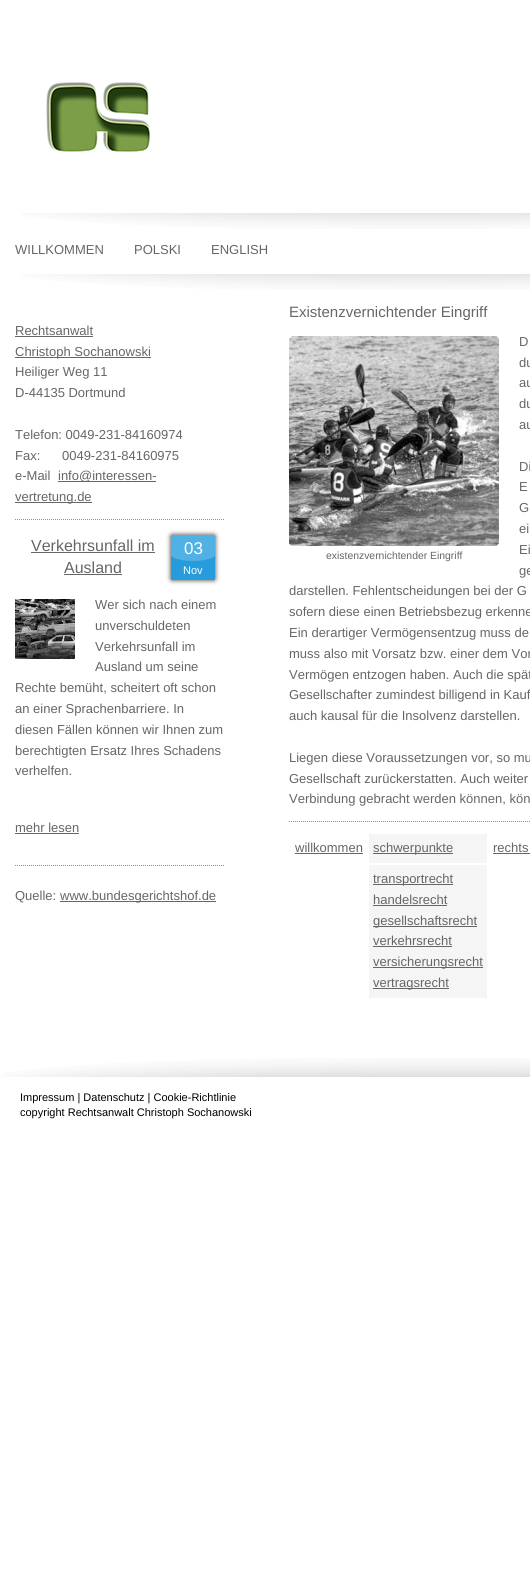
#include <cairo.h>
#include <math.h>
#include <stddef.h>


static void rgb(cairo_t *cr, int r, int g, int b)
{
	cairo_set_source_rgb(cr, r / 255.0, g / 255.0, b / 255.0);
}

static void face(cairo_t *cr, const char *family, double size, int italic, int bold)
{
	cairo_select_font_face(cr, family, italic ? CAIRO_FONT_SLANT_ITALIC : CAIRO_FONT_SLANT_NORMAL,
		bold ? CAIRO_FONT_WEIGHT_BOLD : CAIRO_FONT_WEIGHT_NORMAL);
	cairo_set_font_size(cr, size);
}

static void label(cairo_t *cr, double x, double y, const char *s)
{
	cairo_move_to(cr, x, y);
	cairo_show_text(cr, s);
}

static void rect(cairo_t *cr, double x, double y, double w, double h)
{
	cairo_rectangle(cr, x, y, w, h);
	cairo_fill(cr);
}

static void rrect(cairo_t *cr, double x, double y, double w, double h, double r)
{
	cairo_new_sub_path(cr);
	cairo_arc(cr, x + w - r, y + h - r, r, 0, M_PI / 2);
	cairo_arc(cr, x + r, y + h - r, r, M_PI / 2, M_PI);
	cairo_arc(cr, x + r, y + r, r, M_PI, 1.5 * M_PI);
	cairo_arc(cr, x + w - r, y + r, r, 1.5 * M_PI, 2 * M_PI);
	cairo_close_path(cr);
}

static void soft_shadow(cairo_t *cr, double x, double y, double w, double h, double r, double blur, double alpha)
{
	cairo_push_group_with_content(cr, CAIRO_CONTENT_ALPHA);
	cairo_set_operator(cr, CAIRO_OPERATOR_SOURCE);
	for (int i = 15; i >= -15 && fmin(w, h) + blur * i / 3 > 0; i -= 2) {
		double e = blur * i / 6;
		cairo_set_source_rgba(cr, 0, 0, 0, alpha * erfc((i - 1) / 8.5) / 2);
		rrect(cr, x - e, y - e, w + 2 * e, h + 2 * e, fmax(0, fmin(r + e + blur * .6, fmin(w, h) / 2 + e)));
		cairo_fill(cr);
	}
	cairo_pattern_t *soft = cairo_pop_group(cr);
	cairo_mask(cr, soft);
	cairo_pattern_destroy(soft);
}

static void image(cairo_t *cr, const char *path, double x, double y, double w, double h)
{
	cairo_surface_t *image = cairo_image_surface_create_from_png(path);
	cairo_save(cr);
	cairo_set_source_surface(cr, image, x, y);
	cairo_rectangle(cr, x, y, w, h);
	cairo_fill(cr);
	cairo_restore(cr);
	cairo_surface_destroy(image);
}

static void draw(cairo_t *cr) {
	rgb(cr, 255, 255, 255);
	cairo_paint(cr);
	image(cr, "image0.png", 22, 274, 508, 16);
	image(cr, "image0.png", 22, 213, 508, 16);
	face(cr, "Liberation Sans", 13, 0, 0);
	rgb(cr, 102, 102, 102);
	label(cr, 15, 254, "WILLKOMMEN");
	label(cr, 134, 254, "POLSKI");
	label(cr, 211, 254, "ENGLISH");
	label(cr, 15, 335, "Rechtsanwalt");
	rect(cr, 15, 336, 78, 1);
	rect(cr, 15, 357, 136, 1);
	label(cr, 15, 356, "Christoph Sochanowski");
	label(cr, 15, 376, "Heiliger Weg 11");
	label(cr, 15, 397, "D-44135 Dortmund");
	label(cr, 15, 439, "Telefon: 0049-231-84160974");
	label(cr, 15, 460, "Fax:      0049-231-84160975");
	label(cr, 15, 480, "e-Mail");
	rect(cr, 58, 481, 98, 1);
	label(cr, 58, 480, "info@interessen-");
	rect(cr, 15, 502, 77, 1);
	label(cr, 15, 501, "vertretung.de");
	cairo_new_path(cr);
	cairo_move_to(cr, 15, 519.5);
	cairo_line_to(cr, 225, 519.5);
	rgb(cr, 246, 118, 0);
	cairo_set_line_width(cr, 1);
	cairo_set_dash(cr, (double[]){1, 1}, 2, 0);
	cairo_stroke(cr);
	face(cr, "Liberation Sans", 16, 0, 0);
	rgb(cr, 102, 102, 102);
	label(cr, 31, 551, "Verkehrsunfall im");
	rect(cr, 31, 552, 124, 1);
	label(cr, 64, 573, "Ausland");
	rect(cr, 64, 574, 58, 1);
	rgb(cr, 50, 50, 50);
	soft_shadow(cr, 171, 535, 44, 45, 1, 2.5, 1);
	rgb(cr, 38, 156, 221);
	rrect(cr, 171, 535, 44, 45, 1);
	cairo_fill(cr);
	face(cr, "Liberation Sans", 17, 0, 0);
	rgb(cr, 255, 255, 255);
	label(cr, 184, 554, "03");
	cairo_set_source_rgba(cr, 1, 1, 1, 0.2);
	cairo_new_path(cr);
	cairo_move_to(cr, 172, 535);
	cairo_curve_to(cr, 171, 535, 171, 535, 171, 536);
	cairo_line_to(cr, 171, 555);
	cairo_curve_to(cr, 171, 558, 181, 561, 193, 561);
	cairo_curve_to(cr, 205, 561, 215, 558, 215, 555);
	cairo_line_to(cr, 215, 536);
	cairo_curve_to(cr, 215, 535, 215, 535, 214, 535);
	cairo_close_path(cr);
	cairo_fill(cr);
	face(cr, "Liberation Sans", 11, 0, 0);
	rgb(cr, 255, 255, 255);
	label(cr, 183, 574, "Nov");
	face(cr, "Liberation Sans", 13, 0, 0);
	rgb(cr, 102, 102, 102);
	label(cr, 95, 609, "Wer sich nach einem");
	label(cr, 95, 630, "unverschuldeten");
	label(cr, 95, 651, "Verkehrsunfall im");
	label(cr, 95, 671, "Ausland um seine");
	label(cr, 15, 692, "Rechte bemüht, scheitert oft schon");
	label(cr, 15, 713, "an einer Sprachenbarriere. In");
	label(cr, 15, 734, "diesen Fällen können wir Ihnen zum");
	label(cr, 15, 755, "berechtigten Ersatz Ihres Schadens");
	label(cr, 15, 775, "verhelfen.");
	image(cr, "image1.png", 15, 599, 60, 60);
	label(cr, 15, 832, "mehr lesen");
	rect(cr, 15, 833, 64, 1);
	cairo_new_path(cr);
	cairo_move_to(cr, 15, 865.5);
	cairo_line_to(cr, 225, 865.5);
	rgb(cr, 246, 118, 0);
	cairo_stroke(cr);
	rgb(cr, 102, 102, 102);
	label(cr, 15, 900, "Quelle:");
	rect(cr, 60, 901, 156, 1);
	label(cr, 60, 900, "www.bundesgerichtshof.de");
	image(cr, "image2.png", 46, 81, 104, 71);
	face(cr, "Liberation Sans", 15, 0, 0);
	label(cr, 289, 317, "Existenzvernichtender Eingriff");
	face(cr, "Liberation Sans", 13, 0, 0);
	label(cr, 519, 346, "D");
	label(cr, 519, 367, "du");
	label(cr, 519, 387, "au");
	label(cr, 519, 408, "du");
	label(cr, 519, 429, "au");
	label(cr, 519, 471, "Di");
	label(cr, 519, 491, "E");
	label(cr, 519, 512, "G");
	label(cr, 519, 533, "ei");
	label(cr, 519, 554, "Ei");
	label(cr, 519, 575, "ge");
	label(cr, 289, 595, "darstellen. Fehlentscheidungen bei der G");
	label(cr, 289, 616, "sofern diese einen Betriebsbezug erkenne");
	label(cr, 289, 637, "Ein derartiger Vermögensentzug muss de");
	label(cr, 289, 658, "muss also mit Vorsatz bzw. einer dem Vor");
	label(cr, 289, 679, "Vermögen entzogen haben. Auch die spät");
	label(cr, 289, 699, "Gesellschafter zumindest billigend in Kauf");
	label(cr, 289, 720, "auch kausal für die Insolvenz darstellen.");
	label(cr, 289, 762, "Liegen diese Voraussetzungen vor, so mu");
	label(cr, 289, 783, "Gesellschaft zurückerstatten. Auch weiter");
	label(cr, 289, 803, "Verbindung gebracht werden können, kön");
	image(cr, "image3.png", 289, 336, 210, 210);
	face(cr, "Liberation Sans", 10.4, 0, 0);
	label(cr, 326, 559, "existenzvernichtender Eingriff");
	cairo_new_path(cr);
	cairo_move_to(cr, 289, 821.5);
	cairo_line_to(cr, 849, 821.5);
	rgb(cr, 246, 118, 0);
	cairo_stroke(cr);
	face(cr, "Liberation Sans", 13, 0, 0);
	rgb(cr, 102, 102, 102);
	label(cr, 295, 852, "willkommen");
	rect(cr, 295, 853, 68, 1);
	rgb(cr, 244, 245, 244);
	rect(cr, 369, 834, 118, 29);
	rgb(cr, 102, 102, 102);
	rect(cr, 373, 853, 80, 1);
	label(cr, 373, 852, "schwerpunkte");
	label(cr, 493, 852, "rechts");
	rect(cr, 493, 853, 37, 1);
	rgb(cr, 244, 245, 244);
	rect(cr, 369, 865, 118, 133);
	rgb(cr, 102, 102, 102);
	rect(cr, 373, 884, 80, 1);
	label(cr, 373, 883, "transportrecht");
	label(cr, 373, 904, "handelsrecht");
	rect(cr, 373, 905, 74, 1);
	rect(cr, 373, 926, 104, 1);
	label(cr, 373, 925, "gesellschaftsrecht");
	label(cr, 373, 945, "verkehrsrecht");
	rect(cr, 373, 946, 79, 1);
	rect(cr, 373, 967, 110, 1);
	label(cr, 373, 966, "versicherungsrecht");
	rect(cr, 373, 988, 76, 1);
	label(cr, 373, 987, "vertragsrecht");
	image(cr, "image4.png", 2, 1058, 528, 19);
	face(cr, "Liberation Sans", 11, 0, 0);
	rgb(cr, 0, 0, 0);
	label(cr, 20, 1101, "Impressum | Datenschutz | Cookie-Richtlinie");
	label(cr, 20, 1116, "copyright Rechtsanwalt Christoph Sochanowski");
}

int main(void) {
	cairo_surface_t *surface = cairo_image_surface_create(CAIRO_FORMAT_RGB24, 530, 1592);
	cairo_t *cr = cairo_create(surface);
	cairo_font_options_t *options = cairo_font_options_create();
	cairo_font_options_set_hint_metrics(options, CAIRO_HINT_METRICS_OFF);
	cairo_font_options_set_hint_style(options, CAIRO_HINT_STYLE_NONE);
	cairo_set_font_options(cr, options);
	cairo_set_miter_limit(cr, 4);
	draw(cr);
	cairo_surface_write_to_png(surface, "render.png");
	cairo_font_options_destroy(options);
	cairo_destroy(cr);
	cairo_surface_destroy(surface);
	return 0;
}
